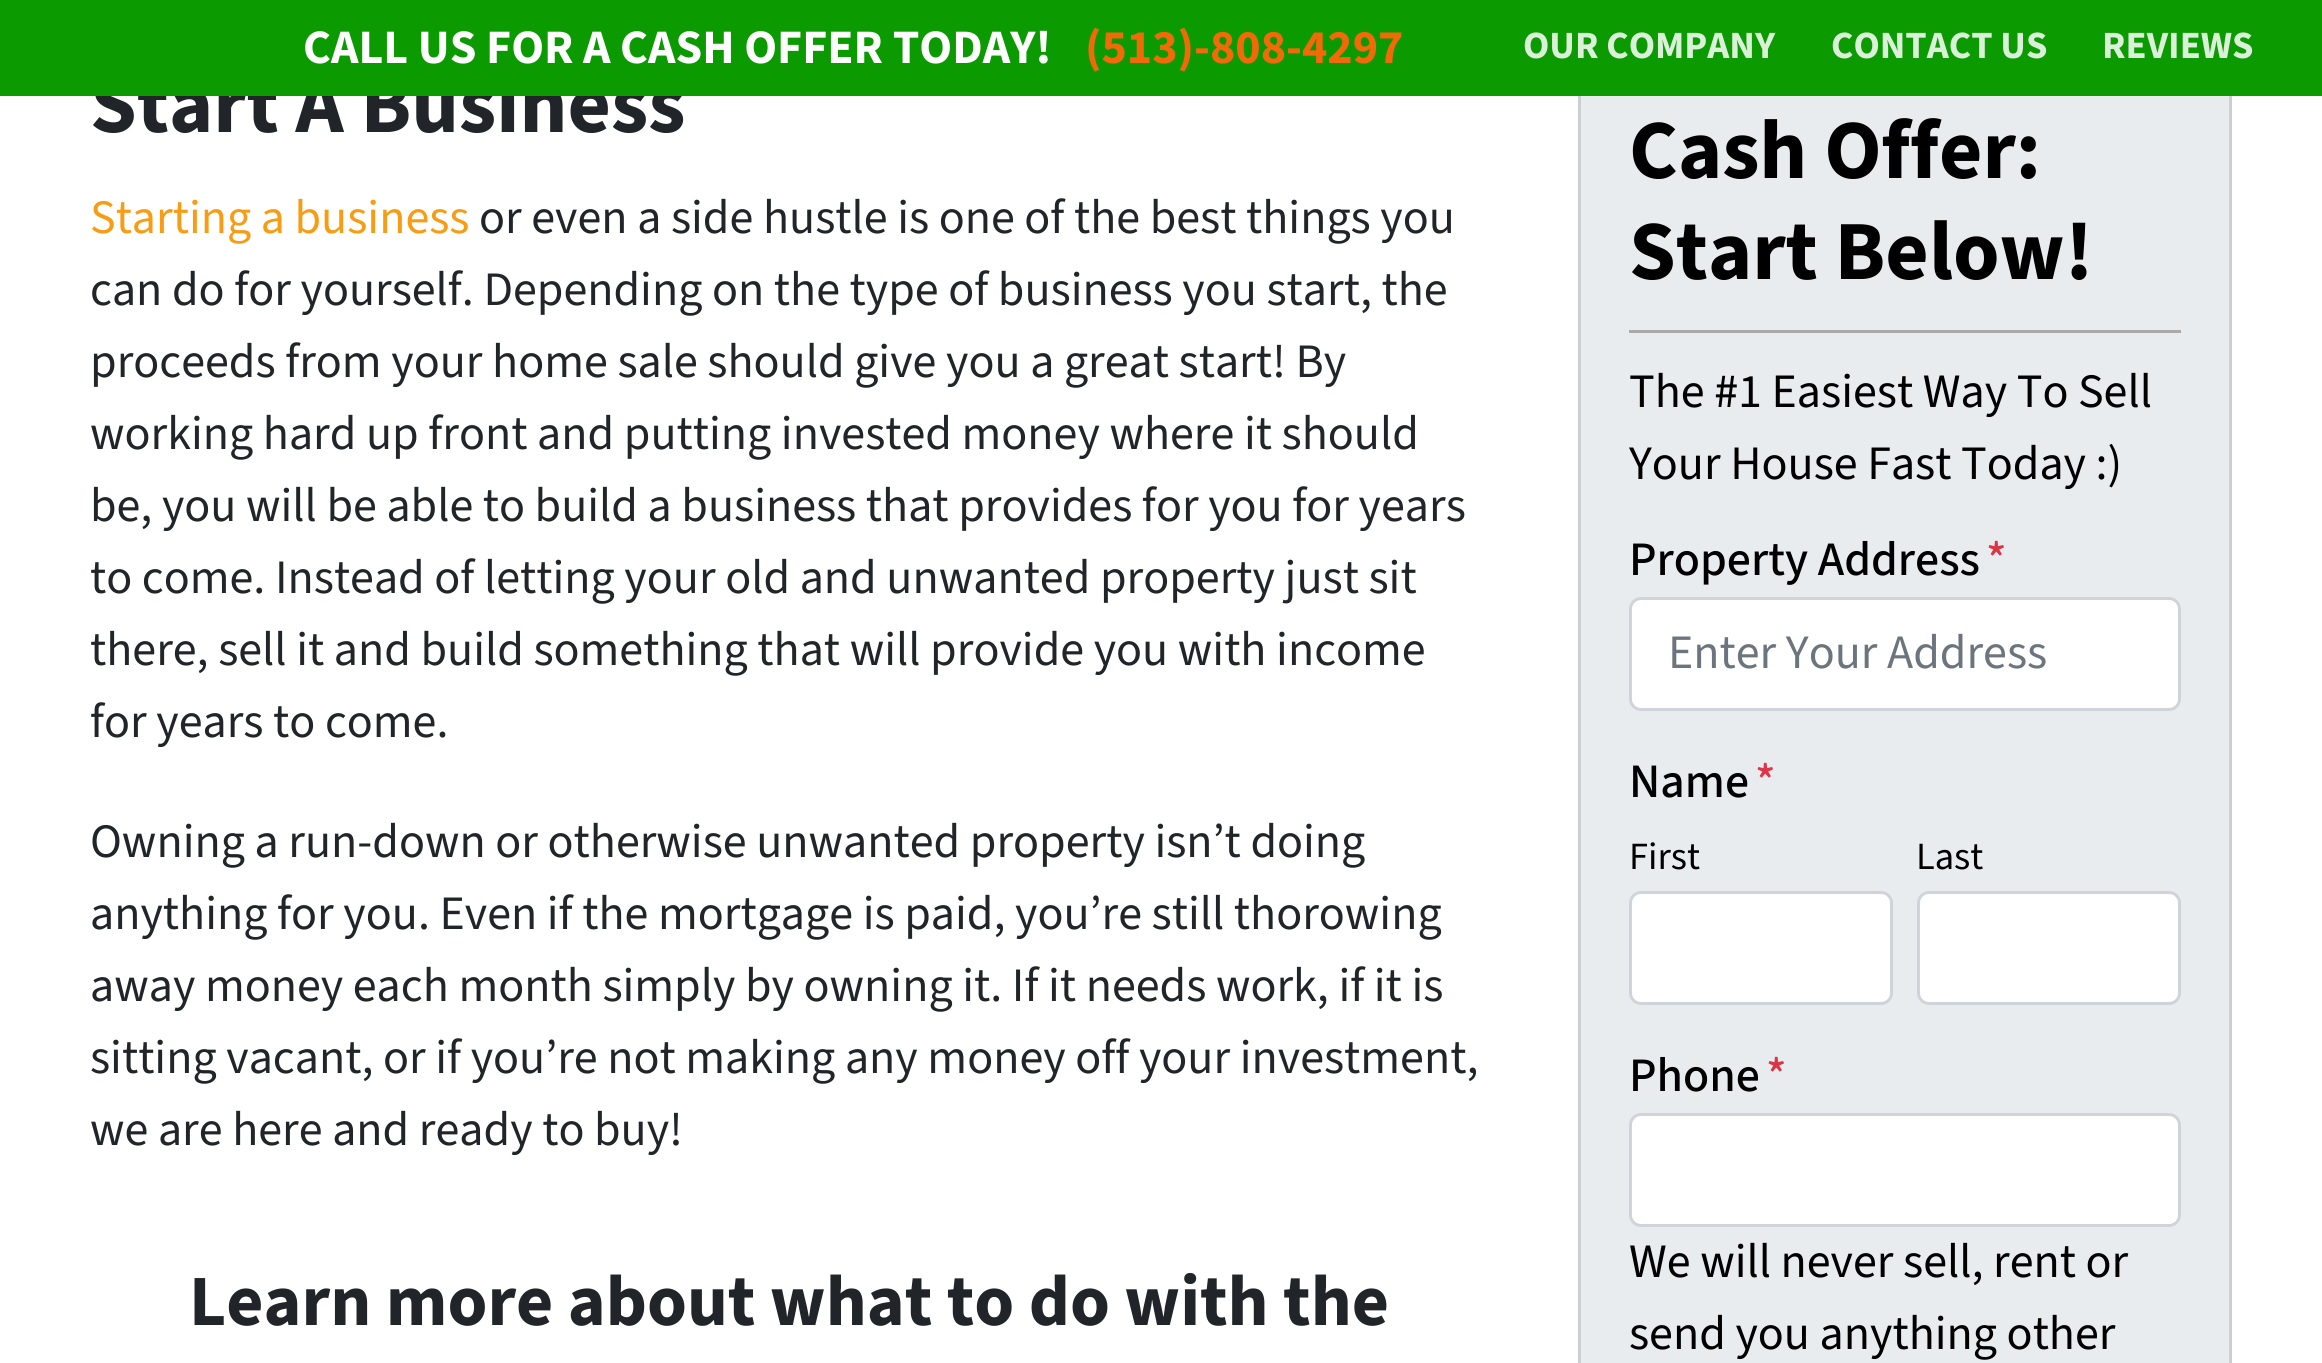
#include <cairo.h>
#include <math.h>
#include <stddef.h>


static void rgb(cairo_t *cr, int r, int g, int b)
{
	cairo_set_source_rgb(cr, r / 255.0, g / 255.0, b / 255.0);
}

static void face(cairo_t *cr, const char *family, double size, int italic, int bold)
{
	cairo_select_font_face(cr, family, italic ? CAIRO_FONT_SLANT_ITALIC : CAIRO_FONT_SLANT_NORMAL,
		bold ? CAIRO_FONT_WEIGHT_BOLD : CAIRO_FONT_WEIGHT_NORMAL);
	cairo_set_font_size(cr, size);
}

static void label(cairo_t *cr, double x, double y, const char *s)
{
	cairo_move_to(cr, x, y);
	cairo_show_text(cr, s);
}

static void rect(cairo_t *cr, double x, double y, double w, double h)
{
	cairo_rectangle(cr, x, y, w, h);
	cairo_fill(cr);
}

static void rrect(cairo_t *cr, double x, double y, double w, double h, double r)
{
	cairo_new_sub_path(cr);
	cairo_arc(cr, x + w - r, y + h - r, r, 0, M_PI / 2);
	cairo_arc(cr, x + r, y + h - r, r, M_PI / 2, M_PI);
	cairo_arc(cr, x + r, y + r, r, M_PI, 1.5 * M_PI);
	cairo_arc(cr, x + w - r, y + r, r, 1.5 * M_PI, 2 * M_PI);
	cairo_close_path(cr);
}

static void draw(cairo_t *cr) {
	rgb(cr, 255, 255, 255);
	cairo_paint(cr);
	face(cr, "Source Sans 3", 84, 0, 1);
	rgb(cr, 33, 37, 41);
	label(cr, 90, 132, "Start A Business");
	rgb(cr, 233, 236, 239);
	rect(cr, 1581, 96, 648, 1267);
	cairo_rectangle(cr, 1579.5, -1.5, 651, 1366);
	rgb(cr, 204, 207, 209);
	cairo_set_line_width(cr, 3);
	cairo_stroke(cr);
	rgb(cr, 11, 155, 1);
	rect(cr, 0, 0, 2322, 96);
	face(cr, "Source Sans 3", 48, 0, 1);
	rgb(cr, 255, 255, 255);
	label(cr, 303, 63, "CALL US FOR A CASH OFFER TODAY!");
	rgb(cr, 242, 105, 7);
	label(cr, 1085, 63, "(513)-808-4297");
	face(cr, "Source Sans 3", 38.5, 0, 1);
	rgb(cr, 218, 240, 217);
	label(cr, 1523, 58, "OUR COMPANY");
	label(cr, 1831, 58, "CONTACT US");
	label(cr, 2102, 58, "REVIEWS");
	face(cr, "Source Sans 3", 48, 0, 0);
	rgb(cr, 247, 156, 19);
	label(cr, 90, 233, "Starting a business");
	rgb(cr, 33, 37, 41);
	label(cr, 479, 233, "or even a side hustle is one of the best things you");
	label(cr, 90, 305, "can do for yourself. Depending on the type of business you start, the");
	label(cr, 90, 377, "proceeds from your home sale should give you a great start! By");
	label(cr, 90, 449, "working hard up front and putting invested money where it should");
	label(cr, 90, 521, "be, you will be able to build a business that provides for you for years");
	label(cr, 90, 593, "to come. Instead of letting your old and unwanted property just sit");
	label(cr, 90, 665, "there, sell it and build something that will provide you with income");
	label(cr, 90, 737, "for years to come.");
	label(cr, 90, 857, "Owning a run-down or otherwise unwanted property isn’t doing");
	label(cr, 90, 929, "anything for you. Even if the mortgage is paid, you’re still thorowing");
	label(cr, 90, 1001, "away money each month simply by owning it. If it needs work, if it is");
	label(cr, 90, 1073, "sitting vacant, or if you’re not making any money off your investment,");
	label(cr, 90, 1145, "we are here and ready to buy!");
	face(cr, "Source Sans 3", 72, 0, 1);
	label(cr, 189, 1325, "Learn more about what to do with the");
	rgb(cr, 170, 170, 170);
	rect(cr, 1629, 330, 552, 3);
	face(cr, "Source Sans 3", 84, 0, 1);
	rgb(cr, 0, 0, 0);
	label(cr, 1629, 178, "Cash Offer:");
	label(cr, 1629, 279, "Start Below!");
	face(cr, "Source Sans 3", 48, 0, 0);
	label(cr, 1629, 407, "The #1 Easiest Way To Sell");
	label(cr, 1629, 479, "Your House Fast Today :)");
	face(cr, "Source Sans 3 Medium", 48, 0, 0);
	label(cr, 1629, 575, "Property Address");
	rgb(cr, 220, 53, 69);
	label(cr, 1986, 575, "*");
	rgb(cr, 255, 255, 255);
	rrect(cr, 1630.5, 598.5, 549, 111, 10.5);
	cairo_fill_preserve(cr);
	rgb(cr, 206, 212, 218);
	cairo_stroke(cr);
	face(cr, "Source Sans 3", 48, 0, 0);
	rgb(cr, 108, 117, 125);
	label(cr, 1668, 668, "Enter Your Address");
	face(cr, "Source Sans 3 Medium", 48, 0, 0);
	rgb(cr, 0, 0, 0);
	label(cr, 1629, 797, "Name");
	rgb(cr, 220, 53, 69);
	label(cr, 1755, 797, "*");
	face(cr, "Source Sans 3", 38.5, 0, 0);
	rgb(cr, 0, 0, 0);
	label(cr, 1629, 869, "First");
	rgb(cr, 255, 255, 255);
	rrect(cr, 1630.5, 892.5, 261, 111, 10.5);
	cairo_fill_preserve(cr);
	rgb(cr, 206, 212, 218);
	cairo_stroke(cr);
	rgb(cr, 0, 0, 0);
	label(cr, 1916, 869, "Last");
	rgb(cr, 255, 255, 255);
	rrect(cr, 1918.5, 892.5, 261, 111, 10.5);
	cairo_fill_preserve(cr);
	rgb(cr, 206, 212, 218);
	cairo_stroke(cr);
	face(cr, "Source Sans 3 Medium", 48, 0, 0);
	rgb(cr, 0, 0, 0);
	label(cr, 1629, 1091, "Phone");
	rgb(cr, 220, 53, 69);
	label(cr, 1766, 1091, "*");
	rgb(cr, 255, 255, 255);
	rrect(cr, 1630.5, 1114.5, 549, 111, 10.5);
	cairo_fill_preserve(cr);
	rgb(cr, 206, 212, 218);
	cairo_stroke(cr);
	face(cr, "Source Sans 3", 48, 0, 0);
	rgb(cr, 0, 0, 0);
	label(cr, 1629, 1277, "We will never sell, rent or");
	label(cr, 1629, 1349, "send you anything other");
}

int main(void) {
	cairo_surface_t *surface = cairo_image_surface_create(CAIRO_FORMAT_RGB24, 2322, 1363);
	cairo_t *cr = cairo_create(surface);
	cairo_font_options_t *options = cairo_font_options_create();
	cairo_font_options_set_hint_metrics(options, CAIRO_HINT_METRICS_OFF);
	cairo_font_options_set_hint_style(options, CAIRO_HINT_STYLE_NONE);
	cairo_set_font_options(cr, options);
	cairo_set_miter_limit(cr, 4);
	draw(cr);
	cairo_surface_write_to_png(surface, "render.png");
	cairo_font_options_destroy(options);
	cairo_destroy(cr);
	cairo_surface_destroy(surface);
	return 0;
}
